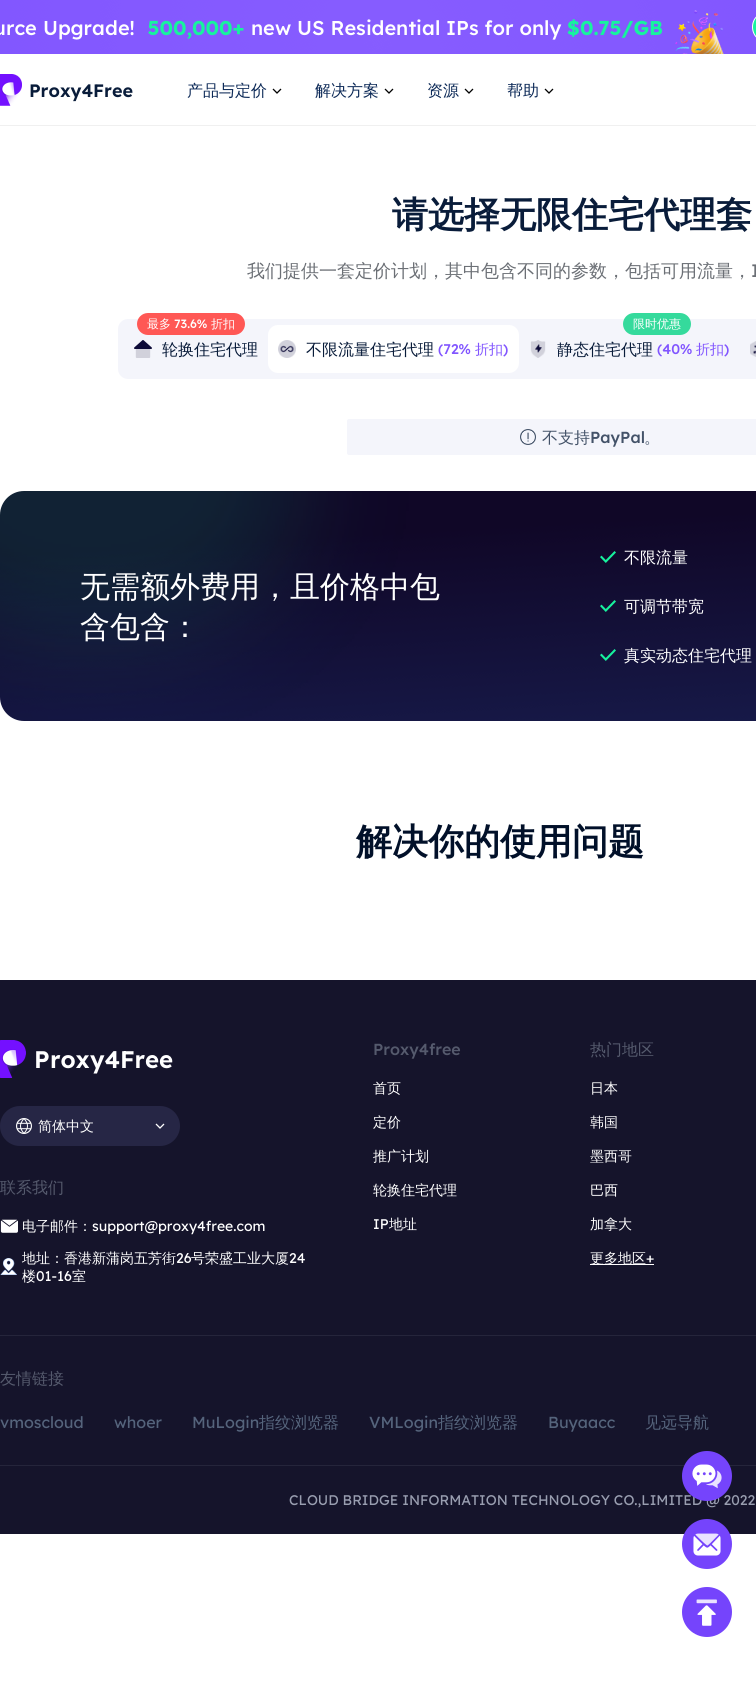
#include <cairo.h>
#include <math.h>
#include <stddef.h>


static void rgb(cairo_t *cr, int r, int g, int b)
{
	cairo_set_source_rgb(cr, r / 255.0, g / 255.0, b / 255.0);
}

static void face(cairo_t *cr, const char *family, double size, int italic, int bold)
{
	cairo_select_font_face(cr, family, italic ? CAIRO_FONT_SLANT_ITALIC : CAIRO_FONT_SLANT_NORMAL,
		bold ? CAIRO_FONT_WEIGHT_BOLD : CAIRO_FONT_WEIGHT_NORMAL);
	cairo_set_font_size(cr, size);
}

static void label(cairo_t *cr, double x, double y, const char *s)
{
	cairo_move_to(cr, x, y);
	cairo_show_text(cr, s);
}

static void rect(cairo_t *cr, double x, double y, double w, double h)
{
	cairo_rectangle(cr, x, y, w, h);
	cairo_fill(cr);
}

static void rrect(cairo_t *cr, double x, double y, double w, double h, double r)
{
	cairo_new_sub_path(cr);
	cairo_arc(cr, x + w - r, y + h - r, r, 0, M_PI / 2);
	cairo_arc(cr, x + r, y + h - r, r, M_PI / 2, M_PI);
	cairo_arc(cr, x + r, y + r, r, M_PI, 1.5 * M_PI);
	cairo_arc(cr, x + w - r, y + r, r, 1.5 * M_PI, 2 * M_PI);
	cairo_close_path(cr);
}

static void image(cairo_t *cr, const char *path, double x, double y, double w, double h)
{
	cairo_surface_t *image = cairo_image_surface_create_from_png(path);
	cairo_save(cr);
	cairo_set_source_surface(cr, image, x, y);
	cairo_rectangle(cr, x, y, w, h);
	cairo_fill(cr);
	cairo_restore(cr);
	cairo_surface_destroy(image);
}

static void draw(cairo_t *cr) {
	rgb(cr, 255, 255, 255);
	cairo_paint(cr);
	image(cr, "image0.png", 0, 0, 756, 54);
	rgb(cr, 240, 240, 240);
	rect(cr, 0, 125, 756, 1);
	image(cr, "image1.png", 0, 74, 133, 32);
	face(cr, "WenQuanYi Zen Hei Medium", 16, 0, 0);
	rgb(cr, 12, 41, 87);
	label(cr, 187, 96, "产品与定价");
	image(cr, "image2.png", 272, 88, 10, 6);
	label(cr, 315, 96, "解决方案");
	image(cr, "image2.png", 384, 88, 10, 6);
	label(cr, 427, 96, "资源");
	image(cr, "image2.png", 464, 88, 10, 6);
	label(cr, 507, 96, "帮助");
	image(cr, "image2.png", 544, 88, 10, 6);
	face(cr, "WenQuanYi Zen Hei", 36, 0, 1);
	rgb(cr, 9, 28, 58);
	label(cr, 392, 227, "请选择无限住宅代理套");
	face(cr, "WenQuanYi Zen Hei Medium", 18, 0, 0);
	rgb(cr, 107, 111, 117);
	label(cr, 247, 277, "我们提供一套定价计划，其中包含不同的参数，包括可用流量，");
	face(cr, "Lexend", 18, 0, 0);
	label(cr, 751, 277, "I");
	rgb(cr, 244, 245, 251);
	rrect(cr, 118, 319, 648, 60, 10);
	cairo_fill(cr);
	rgb(cr, 255, 88, 85);
	rrect(cr, 137, 313, 108, 22, 11);
	cairo_fill(cr);
	face(cr, "WenQuanYi Zen Hei Medium", 12, 0, 0);
	rgb(cr, 255, 255, 255);
	label(cr, 147, 328, "最多");
	face(cr, "Lexend Medium", 12, 0, 0);
	label(cr, 174, 328, "73.6%");
	face(cr, "WenQuanYi Zen Hei Medium", 12, 0, 0);
	label(cr, 211, 328, "折扣");
	image(cr, "image3.png", 134, 340, 18, 18);
	face(cr, "WenQuanYi Zen Hei Medium", 16, 0, 0);
	rgb(cr, 9, 28, 58);
	label(cr, 162, 355, "轮换住宅代理");
	rgb(cr, 255, 255, 255);
	rrect(cr, 268, 325, 251, 48, 10);
	cairo_fill(cr);
	image(cr, "image4.png", 278, 340, 18, 18);
	rgb(cr, 9, 28, 58);
	label(cr, 306, 355, "不限流量住宅代理");
	face(cr, "Lexend Medium", 14, 0, 0);
	rgb(cr, 129, 85, 255);
	label(cr, 438, 354, "(72%");
	face(cr, "WenQuanYi Zen Hei Medium", 14, 0, 0);
	label(cr, 475, 354, "折扣");
	face(cr, "Lexend Medium", 14, 0, 0);
	label(cr, 503, 354, ")");
	rgb(cr, 53, 218, 156);
	rrect(cr, 623, 313, 68, 22, 11);
	cairo_fill(cr);
	face(cr, "WenQuanYi Zen Hei Medium", 12, 0, 0);
	rgb(cr, 255, 255, 255);
	label(cr, 633, 328, "限时优惠");
	image(cr, "image5.png", 530, 340, 16, 18);
	face(cr, "WenQuanYi Zen Hei Medium", 16, 0, 0);
	rgb(cr, 9, 28, 58);
	label(cr, 557, 355, "静态住宅代理");
	face(cr, "Lexend Medium", 14, 0, 0);
	rgb(cr, 129, 85, 255);
	label(cr, 657, 354, "(40%");
	face(cr, "WenQuanYi Zen Hei Medium", 14, 0, 0);
	label(cr, 696, 354, "折扣");
	face(cr, "Lexend Medium", 14, 0, 0);
	label(cr, 724, 354, ")");
	image(cr, "image6.png", 750, 341, 6, 16);
	rgb(cr, 244, 245, 251);
	rrect(cr, 347, 419, 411, 36, 2);
	cairo_fill(cr);
	image(cr, "image7.png", 520, 429, 16, 16);
	face(cr, "WenQuanYi Zen Hei Medium", 16, 0, 0);
	rgb(cr, 67, 82, 104);
	label(cr, 542, 443, "不支持");
	face(cr, "Lexend Medium", 16, 0, 0);
	label(cr, 590, 443, "PayPal");
	face(cr, "WenQuanYi Zen Hei Medium", 16, 0, 0);
	label(cr, 644, 443, "。");
	image(cr, "image8.png", 0, 491, 756, 230);
	face(cr, "WenQuanYi Zen Hei Medium", 30, 0, 0);
	rgb(cr, 255, 255, 255);
	label(cr, 80, 597, "无需额外费用，且价格中包");
	label(cr, 80, 637, "含包含：");
	image(cr, "image9.png", 600, 551, 16, 12);
	face(cr, "WenQuanYi Zen Hei Medium", 16, 0, 0);
	label(cr, 624, 563, "不限流量");
	image(cr, "image10.png", 600, 600, 16, 12);
	label(cr, 624, 612, "可调节带宽");
	image(cr, "image11.png", 600, 649, 16, 12);
	label(cr, 624, 661, "真实动态住宅代理");
	face(cr, "WenQuanYi Zen Hei", 36, 0, 1);
	rgb(cr, 1, 16, 41);
	label(cr, 356, 854, "解决你的使用问题");
	rgb(cr, 21, 20, 43);
	rect(cr, 0, 980, 756, 554);
	rgb(cr, 37, 37, 59);
	rect(cr, 0, 1335, 756, 1);
	image(cr, "image12.png", 0, 1040, 173, 38);
	rgb(cr, 38, 38, 69);
	rrect(cr, 0, 1106, 180, 40, 20);
	cairo_fill(cr);
	image(cr, "image13.png", 16, 1118, 16, 16);
	face(cr, "WenQuanYi Zen Hei Medium", 14, 0, 0);
	rgb(cr, 255, 255, 255);
	label(cr, 38, 1131, "简体中文");
	image(cr, "image14.png", 155, 1123, 10, 6);
	face(cr, "WenQuanYi Zen Hei Medium", 16, 0, 0);
	rgb(cr, 85, 90, 109);
	label(cr, 0, 1193, "联系我们");
	image(cr, "image15.png", 0, 1219, 18, 14);
	face(cr, "WenQuanYi Zen Hei Medium", 14, 0, 0);
	rgb(cr, 255, 255, 255);
	label(cr, 22, 1231, "电子邮件：");
	face(cr, "Lexend", 14, 0, 0);
	label(cr, 92, 1231, "support@proxy4free.com");
	image(cr, "image16.png", 0, 1258, 17, 17);
	face(cr, "WenQuanYi Zen Hei Medium", 14, 0, 0);
	label(cr, 22, 1263, "地址：香港新蒲岗五芳街");
	face(cr, "Lexend", 14, 0, 0);
	label(cr, 176, 1263, "26");
	face(cr, "WenQuanYi Zen Hei Medium", 14, 0, 0);
	label(cr, 191, 1263, "号荣盛工业大厦");
	face(cr, "Lexend", 14, 0, 0);
	label(cr, 289, 1263, "24");
	face(cr, "WenQuanYi Zen Hei Medium", 14, 0, 0);
	label(cr, 22, 1281, "楼");
	face(cr, "Lexend", 14, 0, 0);
	label(cr, 36, 1281, "01-16");
	face(cr, "WenQuanYi Zen Hei Medium", 14, 0, 0);
	label(cr, 72, 1281, "室");
	face(cr, "Lexend Medium", 16, 0, 0);
	rgb(cr, 85, 90, 109);
	label(cr, 373, 1055, "Proxy4free");
	face(cr, "WenQuanYi Zen Hei Medium", 14, 0, 0);
	rgb(cr, 255, 255, 255);
	label(cr, 373, 1093, "首页");
	label(cr, 373, 1127, "定价");
	label(cr, 373, 1161, "推广计划");
	label(cr, 373, 1195, "轮换住宅代理");
	face(cr, "Lexend", 14, 0, 0);
	label(cr, 373, 1229, "IP");
	face(cr, "WenQuanYi Zen Hei Medium", 14, 0, 0);
	label(cr, 389, 1229, "地址");
	face(cr, "WenQuanYi Zen Hei Medium", 16, 0, 0);
	rgb(cr, 85, 90, 109);
	label(cr, 590, 1055, "热门地区");
	face(cr, "WenQuanYi Zen Hei Medium", 14, 0, 0);
	rgb(cr, 255, 255, 255);
	label(cr, 590, 1093, "日本");
	label(cr, 590, 1127, "韩国");
	label(cr, 590, 1161, "墨西哥");
	label(cr, 590, 1195, "巴西");
	label(cr, 590, 1229, "加拿大");
	rect(cr, 590, 1264, 64, 1);
	label(cr, 590, 1263, "更多地区");
	face(cr, "Lexend", 14, 0, 0);
	label(cr, 646, 1263, "+");
	rgb(cr, 37, 37, 59);
	rect(cr, 0, 1465, 756, 1);
	face(cr, "WenQuanYi Zen Hei Medium", 16, 0, 0);
	rgb(cr, 85, 90, 109);
	label(cr, 0, 1384, "友情链接");
	face(cr, "Lexend", 16, 0, 0);
	rgb(cr, 85, 100, 124);
	label(cr, 0, 1428, "vmoscloud");
	label(cr, 114, 1428, "whoer");
	label(cr, 192, 1428, "MuLogin");
	face(cr, "WenQuanYi Zen Hei Medium", 16, 0, 0);
	label(cr, 259, 1428, "指纹浏览器");
	face(cr, "Lexend", 16, 0, 0);
	label(cr, 369, 1428, "VMLogin");
	face(cr, "WenQuanYi Zen Hei Medium", 16, 0, 0);
	label(cr, 438, 1428, "指纹浏览器");
	face(cr, "Lexend", 16, 0, 0);
	label(cr, 548, 1428, "Buyaacc");
	face(cr, "WenQuanYi Zen Hei Medium", 16, 0, 0);
	label(cr, 645, 1428, "见远导航");
	face(cr, "Lexend", 14, 0, 0);
	rgb(cr, 153, 158, 176);
	label(cr, 289, 1505, "CLOUD BRIDGE INFORMATION TECHNOLOGY CO.,LIMITED @ 2022");
	rgb(cr, 117, 68, 252);
	cairo_new_path(cr);
	cairo_arc(cr, 707, 1476, 25, 0, 2 * M_PI);
	cairo_fill(cr);
	image(cr, "image17.png", 692, 1464, 30, 25);
	cairo_arc(cr, 707, 1544, 25, 0, 2 * M_PI);
	cairo_fill(cr);
	image(cr, "image18.png", 693, 1533, 28, 23);
	cairo_arc(cr, 707, 1612, 25, 0, 2 * M_PI);
	cairo_fill(cr);
	image(cr, "image19.png", 696, 1599, 21, 27);
}

int main(void) {
	cairo_surface_t *surface = cairo_image_surface_create(CAIRO_FORMAT_RGB24, 756, 1697);
	cairo_t *cr = cairo_create(surface);
	cairo_font_options_t *options = cairo_font_options_create();
	cairo_font_options_set_hint_metrics(options, CAIRO_HINT_METRICS_OFF);
	cairo_font_options_set_hint_style(options, CAIRO_HINT_STYLE_NONE);
	cairo_set_font_options(cr, options);
	cairo_set_miter_limit(cr, 4);
	draw(cr);
	cairo_surface_write_to_png(surface, "render.png");
	cairo_font_options_destroy(options);
	cairo_destroy(cr);
	cairo_surface_destroy(surface);
	return 0;
}
